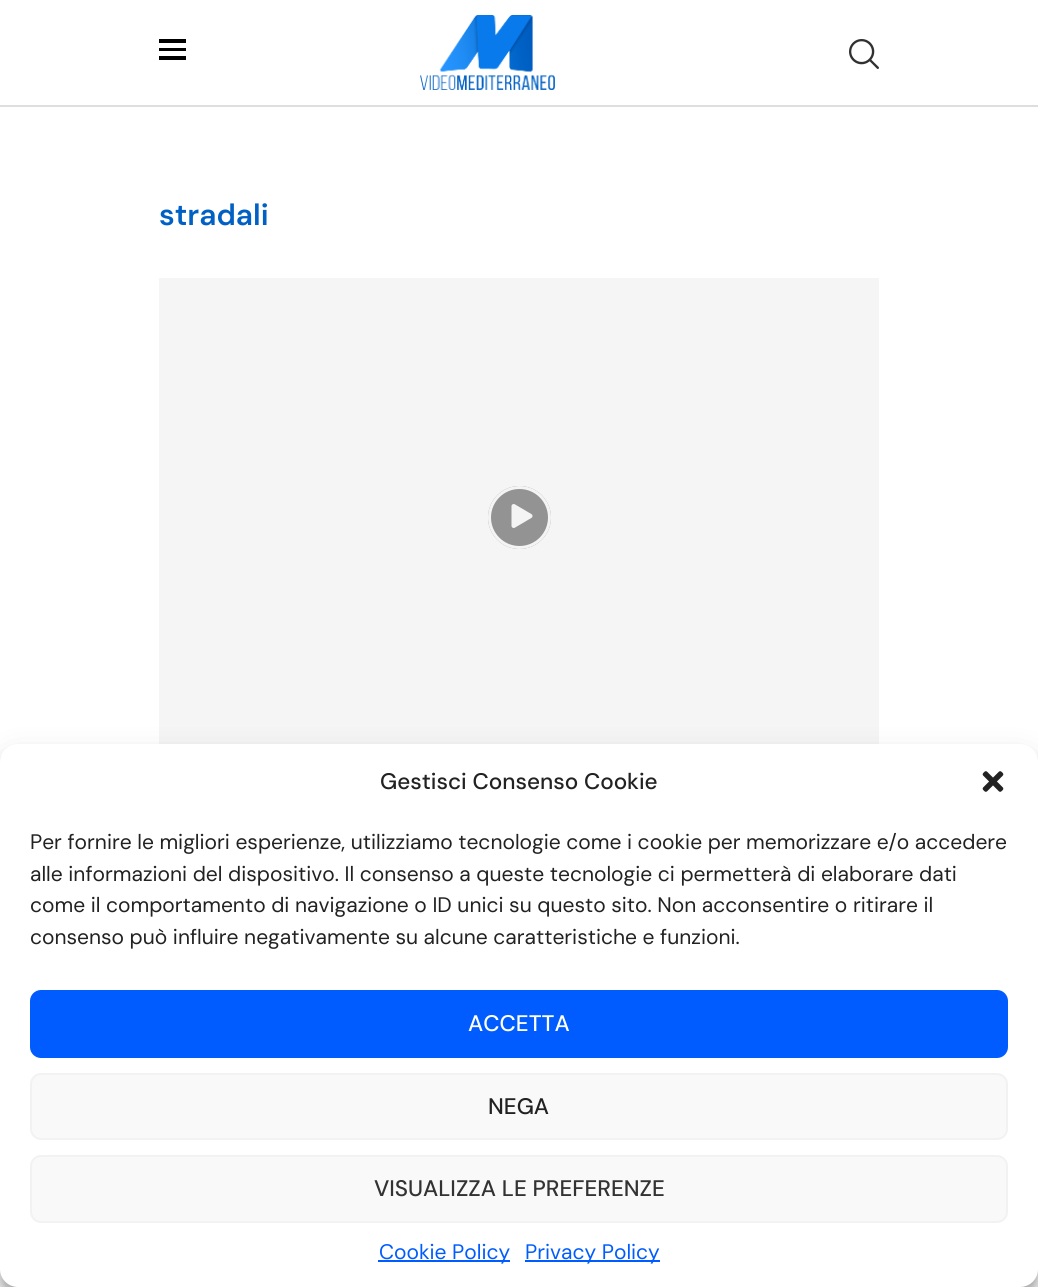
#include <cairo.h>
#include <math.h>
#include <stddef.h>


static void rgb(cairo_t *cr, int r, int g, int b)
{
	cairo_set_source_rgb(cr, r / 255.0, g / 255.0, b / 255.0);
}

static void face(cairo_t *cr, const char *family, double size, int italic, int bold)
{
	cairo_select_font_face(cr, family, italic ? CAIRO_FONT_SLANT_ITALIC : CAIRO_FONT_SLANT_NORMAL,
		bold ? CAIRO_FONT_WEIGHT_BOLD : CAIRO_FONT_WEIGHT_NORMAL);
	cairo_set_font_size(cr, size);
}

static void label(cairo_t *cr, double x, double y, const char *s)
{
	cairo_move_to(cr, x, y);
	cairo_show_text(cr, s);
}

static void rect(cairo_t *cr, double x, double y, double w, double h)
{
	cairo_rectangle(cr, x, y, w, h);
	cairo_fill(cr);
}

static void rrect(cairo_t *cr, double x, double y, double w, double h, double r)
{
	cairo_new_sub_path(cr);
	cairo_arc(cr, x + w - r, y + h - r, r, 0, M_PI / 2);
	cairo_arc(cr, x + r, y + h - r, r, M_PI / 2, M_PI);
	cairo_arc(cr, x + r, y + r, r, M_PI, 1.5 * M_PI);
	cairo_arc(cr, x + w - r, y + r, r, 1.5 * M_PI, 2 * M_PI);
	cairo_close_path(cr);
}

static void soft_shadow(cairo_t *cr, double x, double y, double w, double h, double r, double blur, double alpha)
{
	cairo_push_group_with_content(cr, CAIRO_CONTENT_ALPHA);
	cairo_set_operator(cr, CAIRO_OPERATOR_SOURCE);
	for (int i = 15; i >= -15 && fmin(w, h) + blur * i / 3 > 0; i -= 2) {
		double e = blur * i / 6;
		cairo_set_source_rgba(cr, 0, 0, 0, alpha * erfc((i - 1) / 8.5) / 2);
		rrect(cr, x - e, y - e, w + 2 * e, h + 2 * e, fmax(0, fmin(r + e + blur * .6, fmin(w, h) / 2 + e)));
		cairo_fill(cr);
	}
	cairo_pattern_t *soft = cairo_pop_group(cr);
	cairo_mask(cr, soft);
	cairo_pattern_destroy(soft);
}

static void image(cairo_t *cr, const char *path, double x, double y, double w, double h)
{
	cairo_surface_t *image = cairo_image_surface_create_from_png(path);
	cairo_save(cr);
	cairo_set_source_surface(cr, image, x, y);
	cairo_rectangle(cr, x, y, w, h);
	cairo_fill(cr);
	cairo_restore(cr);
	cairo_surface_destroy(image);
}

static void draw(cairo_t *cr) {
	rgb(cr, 255, 255, 255);
	cairo_paint(cr);
	rgb(cr, 222, 222, 222);
	rect(cr, 0, 105, 1038, 2);
	rgb(cr, 0, 0, 0);
	rect(cr, 159, 39, 27, 4);
	rect(cr, 159, 48, 27, 3);
	rect(cr, 159, 56, 27, 4);
	image(cr, "image0.png", 420, 15, 135, 75);
	image(cr, "image1.png", 849, 39, 30, 30);
	face(cr, "DM Sans SemiBold", 30, 0, 0);
	rgb(cr, 0, 96, 195);
	label(cr, 159, 225, "stradali");
	rgb(cr, 245, 245, 245);
	rect(cr, 159, 278, 720, 466);
	rgb(cr, 147, 147, 147);
	cairo_new_path(cr);
	cairo_arc(cr, 519.5, 517.5, 31.5, 0, 2 * M_PI);
	cairo_fill(cr);
	cairo_arc(cr, 519.5, 517.5, 30, 0, 2 * M_PI);
	cairo_set_source_rgba(cr, 1, 1, 1, 0.9);
	cairo_set_line_width(cr, 3);
	cairo_stroke(cr);
	image(cr, "image2.png", 511, 504, 22, 24);
	rgb(cr, 0, 0, 0);
	soft_shadow(cr, 0, 753, 1038, 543, 18, 4.5, 0.23);
	soft_shadow(cr, 0, 759, 1038, 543, 18, 15, 0.19);
	rgb(cr, 255, 255, 255);
	rrect(cr, 0, 744, 1038, 543, 18);
	cairo_fill(cr);
	face(cr, "DM Sans Medium", 22.5, 0, 0);
	rgb(cr, 34, 34, 34);
	label(cr, 380, 789, "Gestisci Consenso Cookie");
	image(cr, "image3.png", 982, 771, 22, 21);
	face(cr, "DM Sans", 21, 0, 0);
	label(cr, 30, 849, "Per fornire le migliori esperienze, utilizziamo tecnologie come i cookie per memorizzare e/o accedere");
	label(cr, 30, 881, "alle informazioni del dispositivo. Il consenso a queste tecnologie ci permetterà di elaborare dati");
	label(cr, 30, 912, "come il comportamento di navigazione o ID unici su questo sito. Non acconsentire o ritirare il");
	label(cr, 30, 944, "consenso può influire negativamente su alcune caratteristiche e funzioni.");
	rgb(cr, 0, 92, 255);
	rrect(cr, 31, 991, 976, 66, 10);
	cairo_fill_preserve(cr);
	cairo_set_line_width(cr, 2);
	cairo_stroke(cr);
	face(cr, "DM Sans Medium", 22.5, 0, 0);
	rgb(cr, 255, 255, 255);
	label(cr, 468, 1031, "ACCETTA");
	rgb(cr, 249, 249, 249);
	rrect(cr, 31, 1074, 976, 65, 10);
	cairo_fill_preserve(cr);
	rgb(cr, 242, 242, 242);
	cairo_stroke(cr);
	rgb(cr, 34, 34, 34);
	label(cr, 488, 1114, "NEGA");
	rgb(cr, 249, 249, 249);
	rrect(cr, 31, 1156, 976, 66, 10);
	cairo_fill_preserve(cr);
	rgb(cr, 242, 242, 242);
	cairo_stroke(cr);
	rgb(cr, 51, 51, 51);
	label(cr, 374, 1196, "VISUALIZZA LE PREFERENZE");
	rgb(cr, 0, 92, 255);
	rect(cr, 378, 1260, 132, 2);
	face(cr, "DM Sans", 21, 0, 0);
	label(cr, 379, 1259, "Cookie Policy");
	rect(cr, 525, 1260, 135, 2);
	label(cr, 525, 1259, "Privacy Policy");
}

int main(void) {
	cairo_surface_t *surface = cairo_image_surface_create(CAIRO_FORMAT_RGB24, 1038, 1287);
	cairo_t *cr = cairo_create(surface);
	cairo_font_options_t *options = cairo_font_options_create();
	cairo_font_options_set_hint_metrics(options, CAIRO_HINT_METRICS_OFF);
	cairo_font_options_set_hint_style(options, CAIRO_HINT_STYLE_NONE);
	cairo_set_font_options(cr, options);
	cairo_set_miter_limit(cr, 4);
	draw(cr);
	cairo_surface_write_to_png(surface, "render.png");
	cairo_font_options_destroy(options);
	cairo_destroy(cr);
	cairo_surface_destroy(surface);
	return 0;
}
